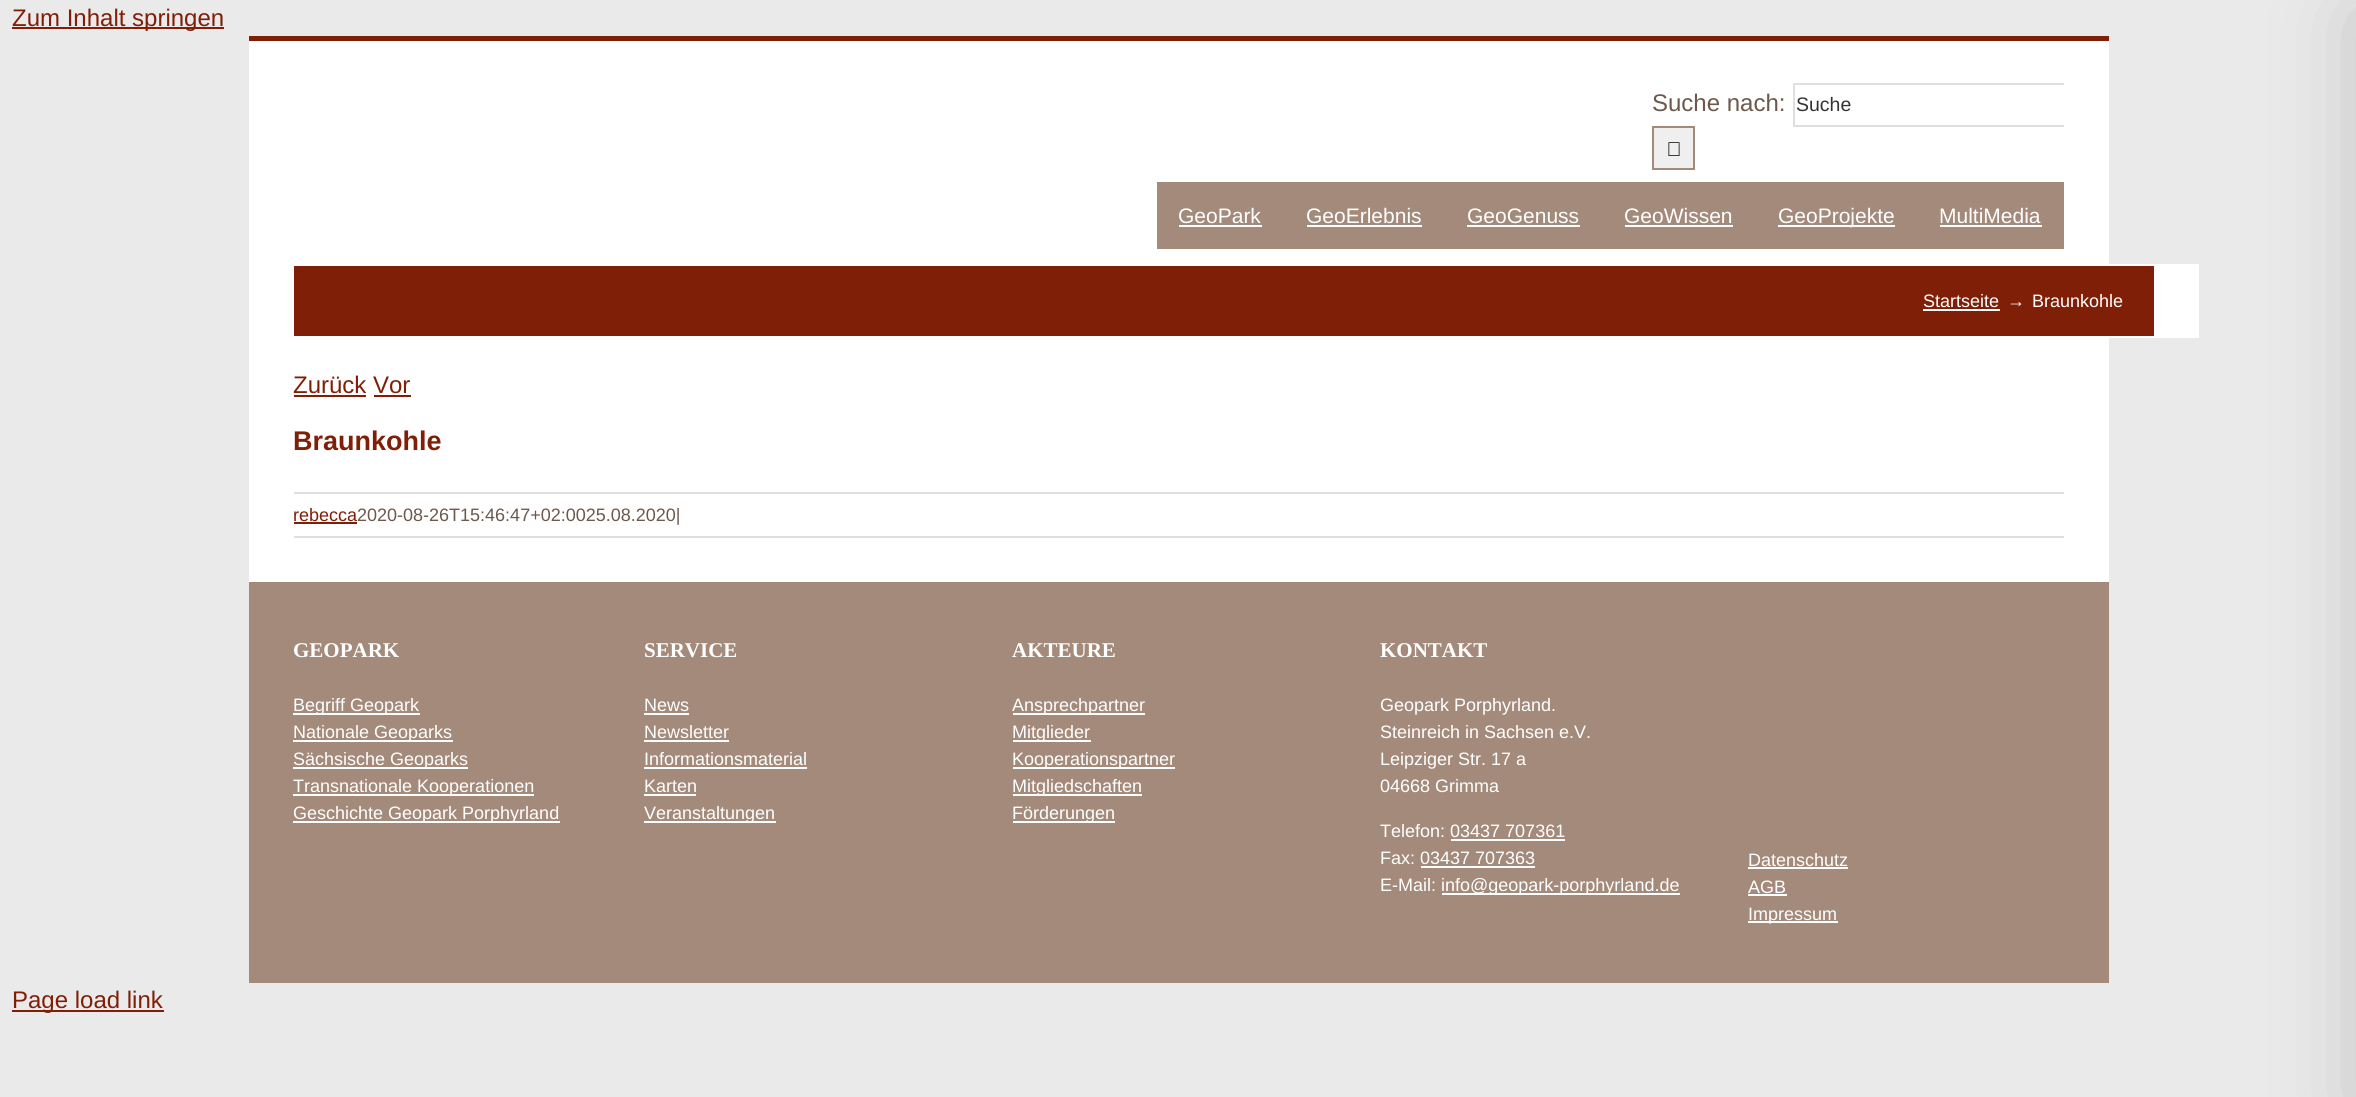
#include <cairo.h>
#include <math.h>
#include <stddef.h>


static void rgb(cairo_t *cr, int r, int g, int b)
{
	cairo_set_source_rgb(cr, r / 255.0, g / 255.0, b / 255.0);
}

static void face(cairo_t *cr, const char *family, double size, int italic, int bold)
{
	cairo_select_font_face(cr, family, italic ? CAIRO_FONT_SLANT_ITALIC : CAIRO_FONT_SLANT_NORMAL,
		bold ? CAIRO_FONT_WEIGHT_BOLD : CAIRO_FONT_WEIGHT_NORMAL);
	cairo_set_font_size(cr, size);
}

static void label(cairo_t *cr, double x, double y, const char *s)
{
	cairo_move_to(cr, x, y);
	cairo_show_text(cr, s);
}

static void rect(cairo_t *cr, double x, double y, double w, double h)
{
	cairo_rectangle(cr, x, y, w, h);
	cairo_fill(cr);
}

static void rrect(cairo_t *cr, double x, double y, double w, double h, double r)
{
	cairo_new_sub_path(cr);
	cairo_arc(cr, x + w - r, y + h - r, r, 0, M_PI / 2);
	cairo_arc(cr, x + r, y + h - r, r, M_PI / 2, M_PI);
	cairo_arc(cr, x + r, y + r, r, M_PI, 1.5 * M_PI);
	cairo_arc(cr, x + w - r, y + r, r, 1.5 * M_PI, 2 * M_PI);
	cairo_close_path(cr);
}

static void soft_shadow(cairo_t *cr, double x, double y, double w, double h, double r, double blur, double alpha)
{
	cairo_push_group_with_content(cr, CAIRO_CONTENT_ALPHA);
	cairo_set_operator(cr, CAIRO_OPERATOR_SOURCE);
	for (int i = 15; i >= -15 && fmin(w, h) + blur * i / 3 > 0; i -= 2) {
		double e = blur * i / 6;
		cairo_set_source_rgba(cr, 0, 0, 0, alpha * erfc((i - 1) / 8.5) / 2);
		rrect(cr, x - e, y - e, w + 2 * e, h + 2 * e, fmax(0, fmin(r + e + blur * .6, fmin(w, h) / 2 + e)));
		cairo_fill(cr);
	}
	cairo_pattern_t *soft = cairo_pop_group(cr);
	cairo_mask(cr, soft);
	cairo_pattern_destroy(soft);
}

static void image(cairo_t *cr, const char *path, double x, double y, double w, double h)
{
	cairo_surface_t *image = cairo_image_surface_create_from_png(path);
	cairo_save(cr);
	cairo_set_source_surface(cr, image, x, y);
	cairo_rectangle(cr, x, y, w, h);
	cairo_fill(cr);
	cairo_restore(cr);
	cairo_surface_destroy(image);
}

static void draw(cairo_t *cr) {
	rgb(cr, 235, 234, 234);
	cairo_paint(cr);
	rgb(cr, 127, 31, 7);
	rect(cr, 12, 27, 212, 2);
	face(cr, "Liberation Sans", 24, 0, 0);
	label(cr, 12, 26, "Zum Inhalt springen");
	rgb(cr, 0, 0, 0);
	soft_shadow(cr, 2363, 15, 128, 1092, 0, 45, 0.2);
	rgb(cr, 255, 255, 255);
	rect(cr, 249, 41, 1860, 223);
	rgb(cr, 127, 31, 7);
	rect(cr, 249, 36, 1860, 5);
	rgb(cr, 109, 88, 75);
	label(cr, 1652, 111, "Suche nach:");
	rgb(cr, 224, 222, 222);
	rect(cr, 1793, 83, 271, 2);
	rect(cr, 1793, 125, 271, 2);
	rect(cr, 1793, 83, 2, 43);
	face(cr, "Liberation Sans", 19.5, 0, 0);
	rgb(cr, 51, 51, 51);
	label(cr, 1796, 111, "Suche");
	rgb(cr, 239, 239, 239);
	cairo_rectangle(cr, 1653, 127, 41, 42);
	cairo_fill_preserve(cr);
	rgb(cr, 164, 138, 122);
	cairo_stroke(cr);
	image(cr, "image0.png", 1668, 142, 12, 14);
	rect(cr, 1157, 182, 907, 67);
	face(cr, "Liberation Sans", 21, 0, 0);
	rgb(cr, 255, 255, 255);
	label(cr, 1178, 223, "GeoPark");
	rect(cr, 1179, 225, 83, 2);
	label(cr, 1306, 223, "GeoErlebnis");
	rect(cr, 1307, 225, 115, 2);
	label(cr, 1467, 223, "GeoGenuss");
	rect(cr, 1467, 225, 113, 2);
	label(cr, 1624, 223, "GeoWissen");
	rect(cr, 1625, 225, 108, 2);
	rect(cr, 1778, 225, 117, 2);
	label(cr, 1778, 223, "GeoProjekte");
	label(cr, 1939, 223, "MultiMedia");
	rect(cr, 1940, 225, 102, 2);
	rect(cr, 249, 264, 1950, 74);
	rgb(cr, 127, 31, 7);
	rect(cr, 294, 266, 1860, 70);
	face(cr, "Liberation Sans", 18, 0, 0);
	rgb(cr, 255, 255, 255);
	label(cr, 1923, 307, "Startseite");
	rect(cr, 1923, 309, 77, 2);
	label(cr, 2007, 307, "→");
	label(cr, 2032, 307, "Braunkohle");
	rect(cr, 249, 338, 1860, 244);
	face(cr, "Liberation Sans", 24, 0, 0);
	rgb(cr, 127, 31, 7);
	label(cr, 293, 393, "Zurück Vor");
	rect(cr, 294, 395, 72, 2);
	rect(cr, 374, 395, 37, 2);
	face(cr, "Liberation Sans", 27, 0, 1);
	label(cr, 293, 450, "Braunkohle");
	rgb(cr, 224, 222, 222);
	rect(cr, 294, 492, 1770, 2);
	rect(cr, 294, 536, 1770, 2);
	face(cr, "Liberation Sans", 18, 0, 0);
	rgb(cr, 127, 31, 7);
	label(cr, 293, 521, "rebecca");
	rect(cr, 294, 522, 63, 2);
	rgb(cr, 109, 88, 75);
	label(cr, 357, 521, "2020-08-26T15:46:47+02:0025.08.2020|");
	rgb(cr, 164, 138, 122);
	rect(cr, 249, 582, 1860, 401);
	face(cr, "Liberation Serif", 21, 0, 1);
	rgb(cr, 255, 255, 255);
	label(cr, 293, 657, "GEOPARK");
	rect(cr, 293, 713, 127, 2);
	face(cr, "Liberation Sans", 18, 0, 0);
	label(cr, 293, 711, "Begriff Geopark");
	rect(cr, 293, 740, 160, 2);
	label(cr, 293, 738, "Nationale Geoparks");
	rect(cr, 293, 767, 175, 2);
	label(cr, 293, 765, "Sächsische Geoparks");
	rect(cr, 293, 794, 241, 2);
	label(cr, 293, 792, "Transnationale Kooperationen");
	rect(cr, 293, 821, 267, 2);
	label(cr, 293, 819, "Geschichte Geopark Porphyrland");
	face(cr, "Liberation Serif", 21, 0, 1);
	label(cr, 644, 657, "SERVICE");
	face(cr, "Liberation Sans", 18, 0, 0);
	label(cr, 644, 711, "News");
	rect(cr, 644, 713, 45, 2);
	label(cr, 644, 738, "Newsletter");
	rect(cr, 644, 740, 85, 2);
	label(cr, 644, 765, "Informationsmaterial");
	rect(cr, 644, 767, 163, 2);
	label(cr, 644, 792, "Karten");
	rect(cr, 644, 794, 52, 2);
	rect(cr, 644, 821, 132, 2);
	label(cr, 644, 819, "Veranstaltungen");
	face(cr, "Liberation Serif", 21, 0, 1);
	label(cr, 1012, 657, "AKTEURE");
	rect(cr, 1013, 713, 132, 2);
	face(cr, "Liberation Sans", 18, 0, 0);
	label(cr, 1012, 711, "Ansprechpartner");
	rect(cr, 1013, 740, 78, 2);
	label(cr, 1012, 738, "Mitglieder");
	rect(cr, 1013, 767, 162, 2);
	label(cr, 1012, 765, "Kooperationspartner");
	rect(cr, 1013, 794, 129, 2);
	label(cr, 1012, 792, "Mitgliedschaften");
	rect(cr, 1013, 821, 102, 2);
	label(cr, 1012, 819, "Förderungen");
	face(cr, "Liberation Serif", 21, 0, 1);
	label(cr, 1380, 657, "KONTAKT");
	face(cr, "Liberation Sans", 18, 0, 0);
	label(cr, 1380, 711, "Geopark Porphyrland.");
	label(cr, 1380, 738, "Steinreich in Sachsen e.V.");
	label(cr, 1380, 765, "Leipziger Str. 17 a");
	label(cr, 1380, 792, "04668 Grimma");
	label(cr, 1380, 837, "Telefon: 03437 707361");
	rect(cr, 1451, 839, 114, 2);
	label(cr, 1380, 864, "Fax: 03437 707363");
	rect(cr, 1421, 866, 114, 2);
	label(cr, 1380, 891, "E-Mail:");
	rect(cr, 1442, 893, 238, 2);
	label(cr, 1441, 891, "info@geopark-porphyrland.de");
	label(cr, 1748, 866, "Datenschutz");
	rect(cr, 1748, 867, 100, 2);
	label(cr, 1748, 893, "AGB");
	rect(cr, 1748, 894, 39, 2);
	rect(cr, 1748, 921, 90, 2);
	label(cr, 1748, 920, "Impressum");
	rgb(cr, 127, 31, 7);
	rect(cr, 12, 1010, 152, 2);
	face(cr, "Liberation Sans", 24, 0, 0);
	label(cr, 12, 1008, "Page load link");
}

int main(void) {
	cairo_surface_t *surface = cairo_image_surface_create(CAIRO_FORMAT_RGB24, 2356, 1097);
	cairo_t *cr = cairo_create(surface);
	cairo_font_options_t *options = cairo_font_options_create();
	cairo_font_options_set_hint_metrics(options, CAIRO_HINT_METRICS_OFF);
	cairo_font_options_set_hint_style(options, CAIRO_HINT_STYLE_NONE);
	cairo_set_font_options(cr, options);
	cairo_set_miter_limit(cr, 4);
	draw(cr);
	cairo_surface_write_to_png(surface, "render.png");
	cairo_font_options_destroy(options);
	cairo_destroy(cr);
	cairo_surface_destroy(surface);
	return 0;
}
